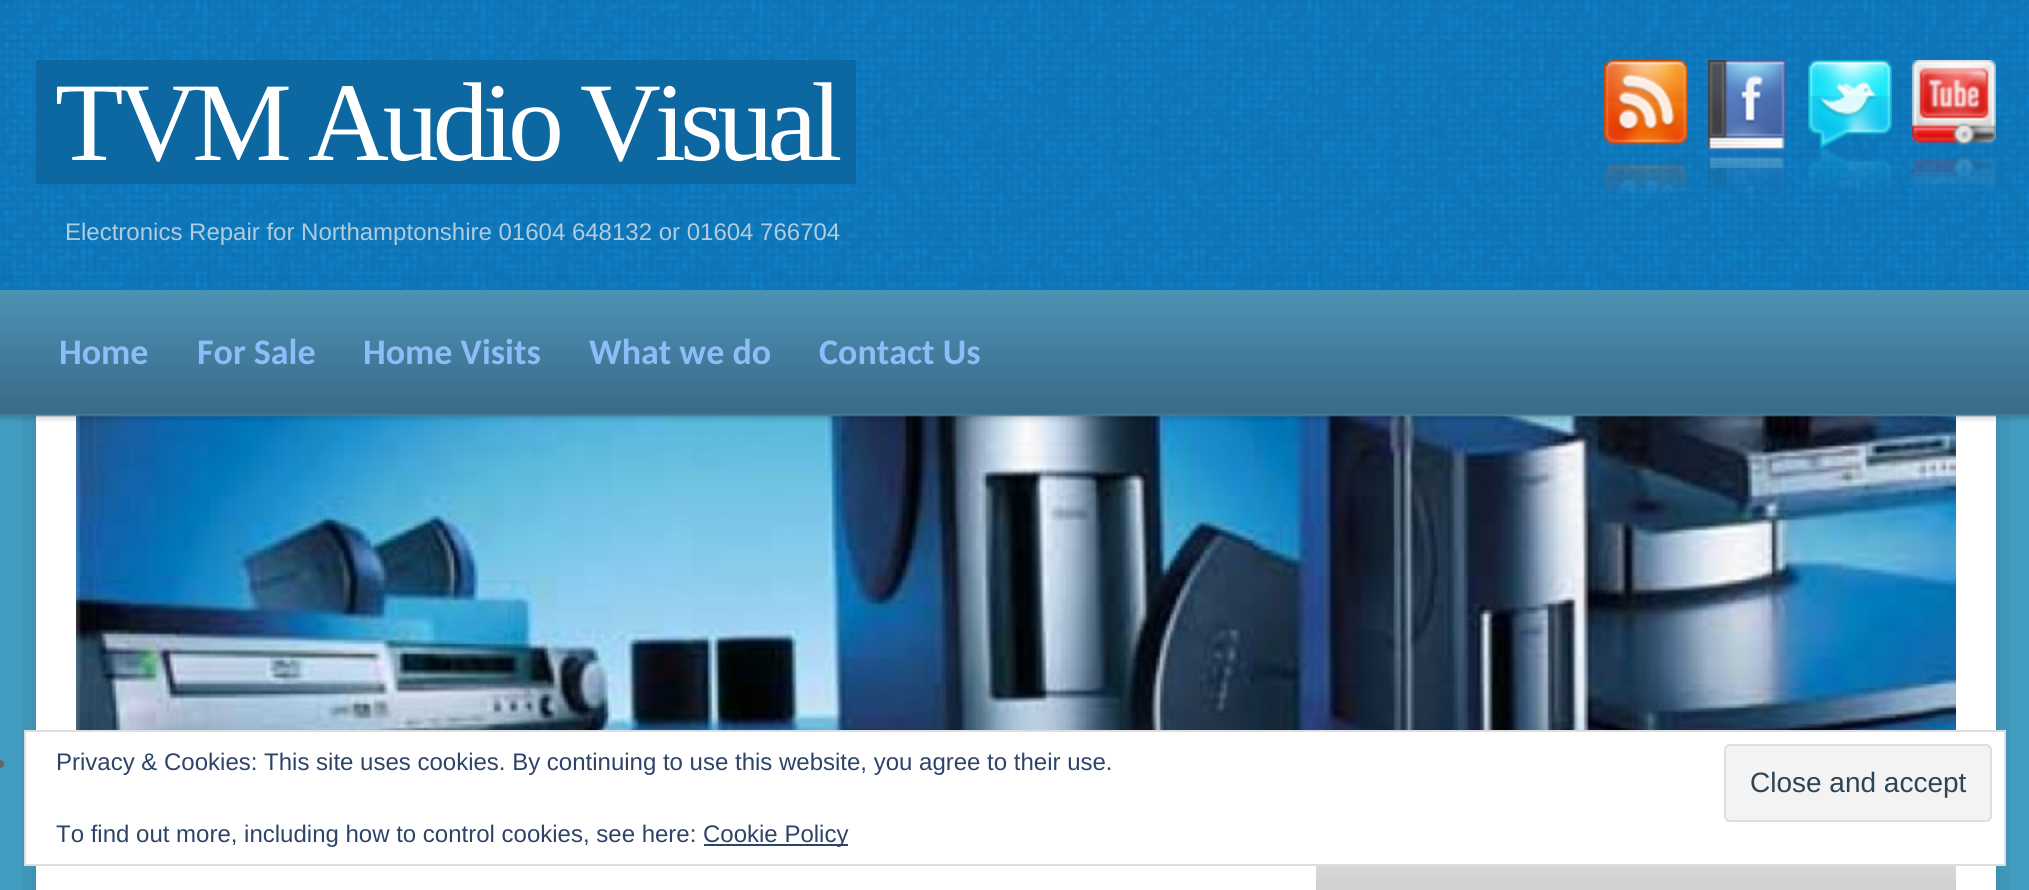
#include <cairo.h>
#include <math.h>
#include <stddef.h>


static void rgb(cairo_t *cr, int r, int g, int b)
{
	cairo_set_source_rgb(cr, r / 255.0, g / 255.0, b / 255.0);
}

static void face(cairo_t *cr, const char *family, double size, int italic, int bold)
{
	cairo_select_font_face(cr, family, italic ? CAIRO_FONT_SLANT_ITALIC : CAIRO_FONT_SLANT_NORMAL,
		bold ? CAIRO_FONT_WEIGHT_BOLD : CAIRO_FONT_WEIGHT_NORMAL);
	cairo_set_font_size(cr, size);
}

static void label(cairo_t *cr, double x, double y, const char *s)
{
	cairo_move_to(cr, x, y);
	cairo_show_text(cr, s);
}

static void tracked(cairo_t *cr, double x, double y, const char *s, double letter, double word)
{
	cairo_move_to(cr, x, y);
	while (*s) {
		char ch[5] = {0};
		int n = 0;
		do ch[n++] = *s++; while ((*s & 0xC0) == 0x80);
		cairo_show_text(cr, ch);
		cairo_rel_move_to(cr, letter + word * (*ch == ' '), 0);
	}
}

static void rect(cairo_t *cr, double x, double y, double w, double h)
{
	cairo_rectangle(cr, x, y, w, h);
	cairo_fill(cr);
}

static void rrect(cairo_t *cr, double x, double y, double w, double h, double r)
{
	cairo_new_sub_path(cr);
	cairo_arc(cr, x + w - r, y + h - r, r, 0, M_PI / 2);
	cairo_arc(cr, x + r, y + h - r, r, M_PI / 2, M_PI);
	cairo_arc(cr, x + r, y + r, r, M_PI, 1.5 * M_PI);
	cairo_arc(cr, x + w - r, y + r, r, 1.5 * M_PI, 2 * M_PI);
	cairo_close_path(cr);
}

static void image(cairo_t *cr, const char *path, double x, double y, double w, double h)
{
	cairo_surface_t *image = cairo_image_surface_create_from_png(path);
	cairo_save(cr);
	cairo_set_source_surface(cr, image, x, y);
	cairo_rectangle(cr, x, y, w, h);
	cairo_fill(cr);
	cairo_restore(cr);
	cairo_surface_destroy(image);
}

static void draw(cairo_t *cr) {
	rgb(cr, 66, 156, 191);
	cairo_paint(cr);
	image(cr, "image0.png", 0, 0, 2029, 290);
	rgb(cr, 13, 104, 162);
	rect(cr, 36, 60, 820, 124);
	face(cr, "Liberation Serif", 112, 0, 0);
	rgb(cr, 255, 255, 255);
	tracked(cr, 55, 160, "TVM Audio Visual", -6, 0);
	image(cr, "image1.png", 1604, 60, 84, 134);
	image(cr, "image2.png", 1708, 60, 79, 134);
	image(cr, "image3.png", 1808, 60, 84, 128);
	image(cr, "image4.png", 1912, 60, 84, 128);
	face(cr, "Liberation Sans", 24, 0, 0);
	rgb(cr, 177, 204, 222);
	label(cr, 65, 240, "Electronics Repair for Northamptonshire 01604 648132 or 01604 766704");
	rgb(cr, 255, 255, 255);
	rect(cr, 36, 415, 1960, 475);
	image(cr, "image6.png", 22, 415, 14, 475);
	image(cr, "image7.png", 76, 415, 1880, 315);
	image(cr, "image8.png", 1996, 415, 14, 475);
	image(cr, "image5.png", 0, 290, 2029, 132);
	face(cr, "Carlito", 36, 0, 1);
	rgb(cr, 141, 189, 249);
	label(cr, 59, 364, "Home");
	label(cr, 197, 364, "For Sale");
	label(cr, 363, 364, "Home Visits");
	label(cr, 589, 364, "What we do");
	label(cr, 819, 364, "Contact Us");
	image(cr, "image9.png", 1316, 866, 640, 24);
	rgb(cr, 102, 102, 102);
	cairo_arc(cr, 0, 764, 4, 0, 2 * M_PI);
	cairo_fill(cr);
	rgb(cr, 255, 255, 255);
	cairo_rectangle(cr, 25, 731, 1980, 134);
	cairo_fill_preserve(cr);
	rgb(cr, 222, 222, 222);
	cairo_stroke(cr);
	face(cr, "Liberation Sans", 24, 0, 0);
	rgb(cr, 46, 68, 103);
	label(cr, 56, 770, "Privacy & Cookies: This site uses cookies. By continuing to use this website, you agree to their use.");
	rgb(cr, 243, 243, 243);
	rrect(cr, 1725, 745, 266, 76, 5);
	cairo_fill_preserve(cr);
	rgb(cr, 222, 222, 222);
	cairo_stroke(cr);
	face(cr, "Liberation Sans", 28, 0, 0);
	rgb(cr, 46, 68, 83);
	label(cr, 1750, 792, "Close and accept");
	face(cr, "Liberation Sans", 24, 0, 0);
	rgb(cr, 46, 68, 103);
	label(cr, 56, 842, "To find out more, including how to control cookies, see here:");
	rect(cr, 704, 844, 144, 2);
	label(cr, 703, 842, "Cookie Policy");
}

int main(void) {
	cairo_surface_t *surface = cairo_image_surface_create(CAIRO_FORMAT_RGB24, 2029, 890);
	cairo_t *cr = cairo_create(surface);
	cairo_font_options_t *options = cairo_font_options_create();
	cairo_font_options_set_hint_metrics(options, CAIRO_HINT_METRICS_OFF);
	cairo_font_options_set_hint_style(options, CAIRO_HINT_STYLE_NONE);
	cairo_set_font_options(cr, options);
	cairo_set_miter_limit(cr, 4);
	draw(cr);
	cairo_surface_write_to_png(surface, "render.png");
	cairo_font_options_destroy(options);
	cairo_destroy(cr);
	cairo_surface_destroy(surface);
	return 0;
}
